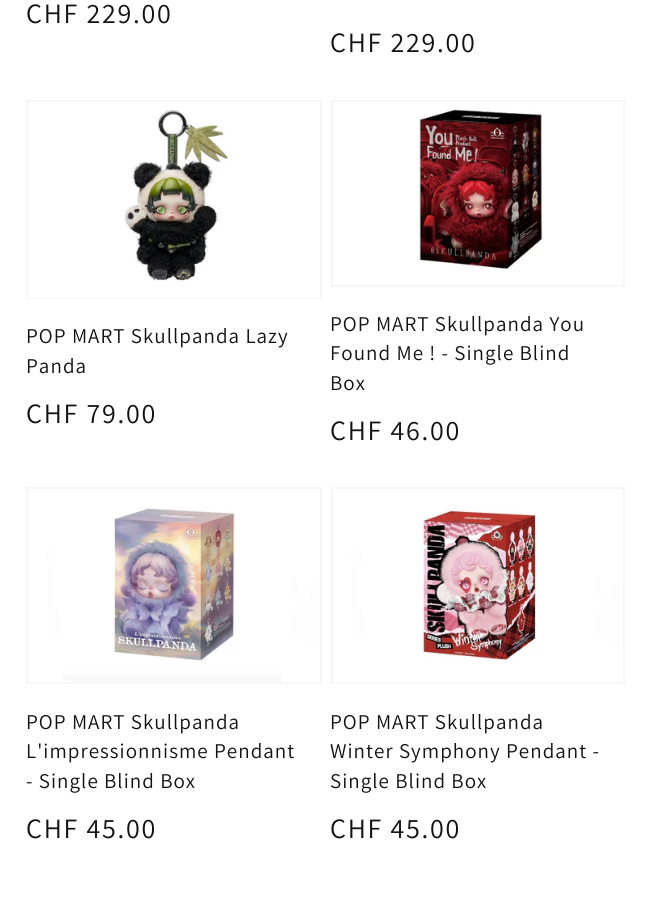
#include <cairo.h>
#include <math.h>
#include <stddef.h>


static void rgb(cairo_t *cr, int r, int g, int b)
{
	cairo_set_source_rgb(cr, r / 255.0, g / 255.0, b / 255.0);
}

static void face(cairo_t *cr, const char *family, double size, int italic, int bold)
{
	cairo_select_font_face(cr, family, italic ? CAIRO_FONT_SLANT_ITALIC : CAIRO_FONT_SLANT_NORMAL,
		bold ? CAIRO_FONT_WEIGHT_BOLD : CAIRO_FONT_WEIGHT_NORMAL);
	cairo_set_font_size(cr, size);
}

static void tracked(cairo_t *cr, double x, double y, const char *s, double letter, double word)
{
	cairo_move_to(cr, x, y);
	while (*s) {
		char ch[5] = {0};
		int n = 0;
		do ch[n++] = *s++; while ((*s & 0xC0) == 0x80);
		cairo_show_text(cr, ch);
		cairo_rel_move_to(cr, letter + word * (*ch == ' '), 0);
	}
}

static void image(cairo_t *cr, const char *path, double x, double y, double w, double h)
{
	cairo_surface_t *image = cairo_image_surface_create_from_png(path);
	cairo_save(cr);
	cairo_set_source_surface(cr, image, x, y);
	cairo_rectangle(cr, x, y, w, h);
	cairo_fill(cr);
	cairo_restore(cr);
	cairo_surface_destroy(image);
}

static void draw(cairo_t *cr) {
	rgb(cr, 255, 255, 255);
	cairo_paint(cr);
	face(cr, "Assistant", 28, 0, 0);
	rgb(cr, 18, 18, 18);
	tracked(cr, 26, 23, "CHF 229.00", 1.75, 0);
	tracked(cr, 330, 52, "CHF 229.00", 1.75, 0);
	cairo_rectangle(cr, 27, 101, 294, 197);
	rgb(cr, 246, 246, 246);
	cairo_stroke(cr);
	image(cr, "image0.png", 28, 109, 292, 189);
	face(cr, "Assistant", 21, 0, 0);
	rgb(cr, 18, 18, 18);
	tracked(cr, 26, 343, "POP MART Skullpanda Lazy", 1.05, 0);
	tracked(cr, 26, 373, "Panda", 1.05, 0);
	face(cr, "Assistant", 28, 0, 0);
	tracked(cr, 26, 423, "CHF 79.00", 1.75, 0);
	cairo_rectangle(cr, 332, 101, 292, 185);
	rgb(cr, 246, 246, 246);
	cairo_stroke(cr);
	image(cr, "image1.png", 418, 108, 125, 162);
	face(cr, "Assistant", 21, 0, 0);
	rgb(cr, 18, 18, 18);
	tracked(cr, 330, 331, "POP MART Skullpanda You", 1.05, 0);
	tracked(cr, 330, 360, "Found Me ! - Single Blind", 1.05, 0);
	tracked(cr, 330, 390, "Box", 1.05, 0);
	face(cr, "Assistant", 28, 0, 0);
	tracked(cr, 330, 440, "CHF 46.00", 1.75, 0);
	cairo_rectangle(cr, 27, 488, 294, 195);
	rgb(cr, 246, 246, 246);
	cairo_stroke(cr);
	image(cr, "image2.png", 28, 508, 292, 175);
	face(cr, "Assistant", 21, 0, 0);
	rgb(cr, 18, 18, 18);
	tracked(cr, 26, 729, "POP MART Skullpanda", 1.05, 0);
	tracked(cr, 26, 758, "L'impressionnisme Pendant", 1.05, 0);
	tracked(cr, 26, 788, "- Single Blind Box", 1.05, 0);
	face(cr, "Assistant", 28, 0, 0);
	tracked(cr, 26, 838, "CHF 45.00", 1.75, 0);
	cairo_rectangle(cr, 332, 488, 292, 195);
	rgb(cr, 246, 246, 246);
	cairo_stroke(cr);
	image(cr, "image3.png", 333, 508, 290, 175);
	face(cr, "Assistant", 21, 0, 0);
	rgb(cr, 18, 18, 18);
	tracked(cr, 330, 729, "POP MART Skullpanda", 1.05, 0);
	tracked(cr, 330, 758, "Winter Symphony Pendant -", 1.05, 0);
	tracked(cr, 330, 788, "Single Blind Box", 1.05, 0);
	face(cr, "Assistant", 28, 0, 0);
	tracked(cr, 330, 838, "CHF 45.00", 1.75, 0);
}

int main(void) {
	cairo_surface_t *surface = cairo_image_surface_create(CAIRO_FORMAT_RGB24, 651, 899);
	cairo_t *cr = cairo_create(surface);
	cairo_font_options_t *options = cairo_font_options_create();
	cairo_font_options_set_hint_metrics(options, CAIRO_HINT_METRICS_OFF);
	cairo_font_options_set_hint_style(options, CAIRO_HINT_STYLE_NONE);
	cairo_set_font_options(cr, options);
	cairo_set_miter_limit(cr, 4);
	draw(cr);
	cairo_surface_write_to_png(surface, "render.png");
	cairo_font_options_destroy(options);
	cairo_destroy(cr);
	cairo_surface_destroy(surface);
	return 0;
}
